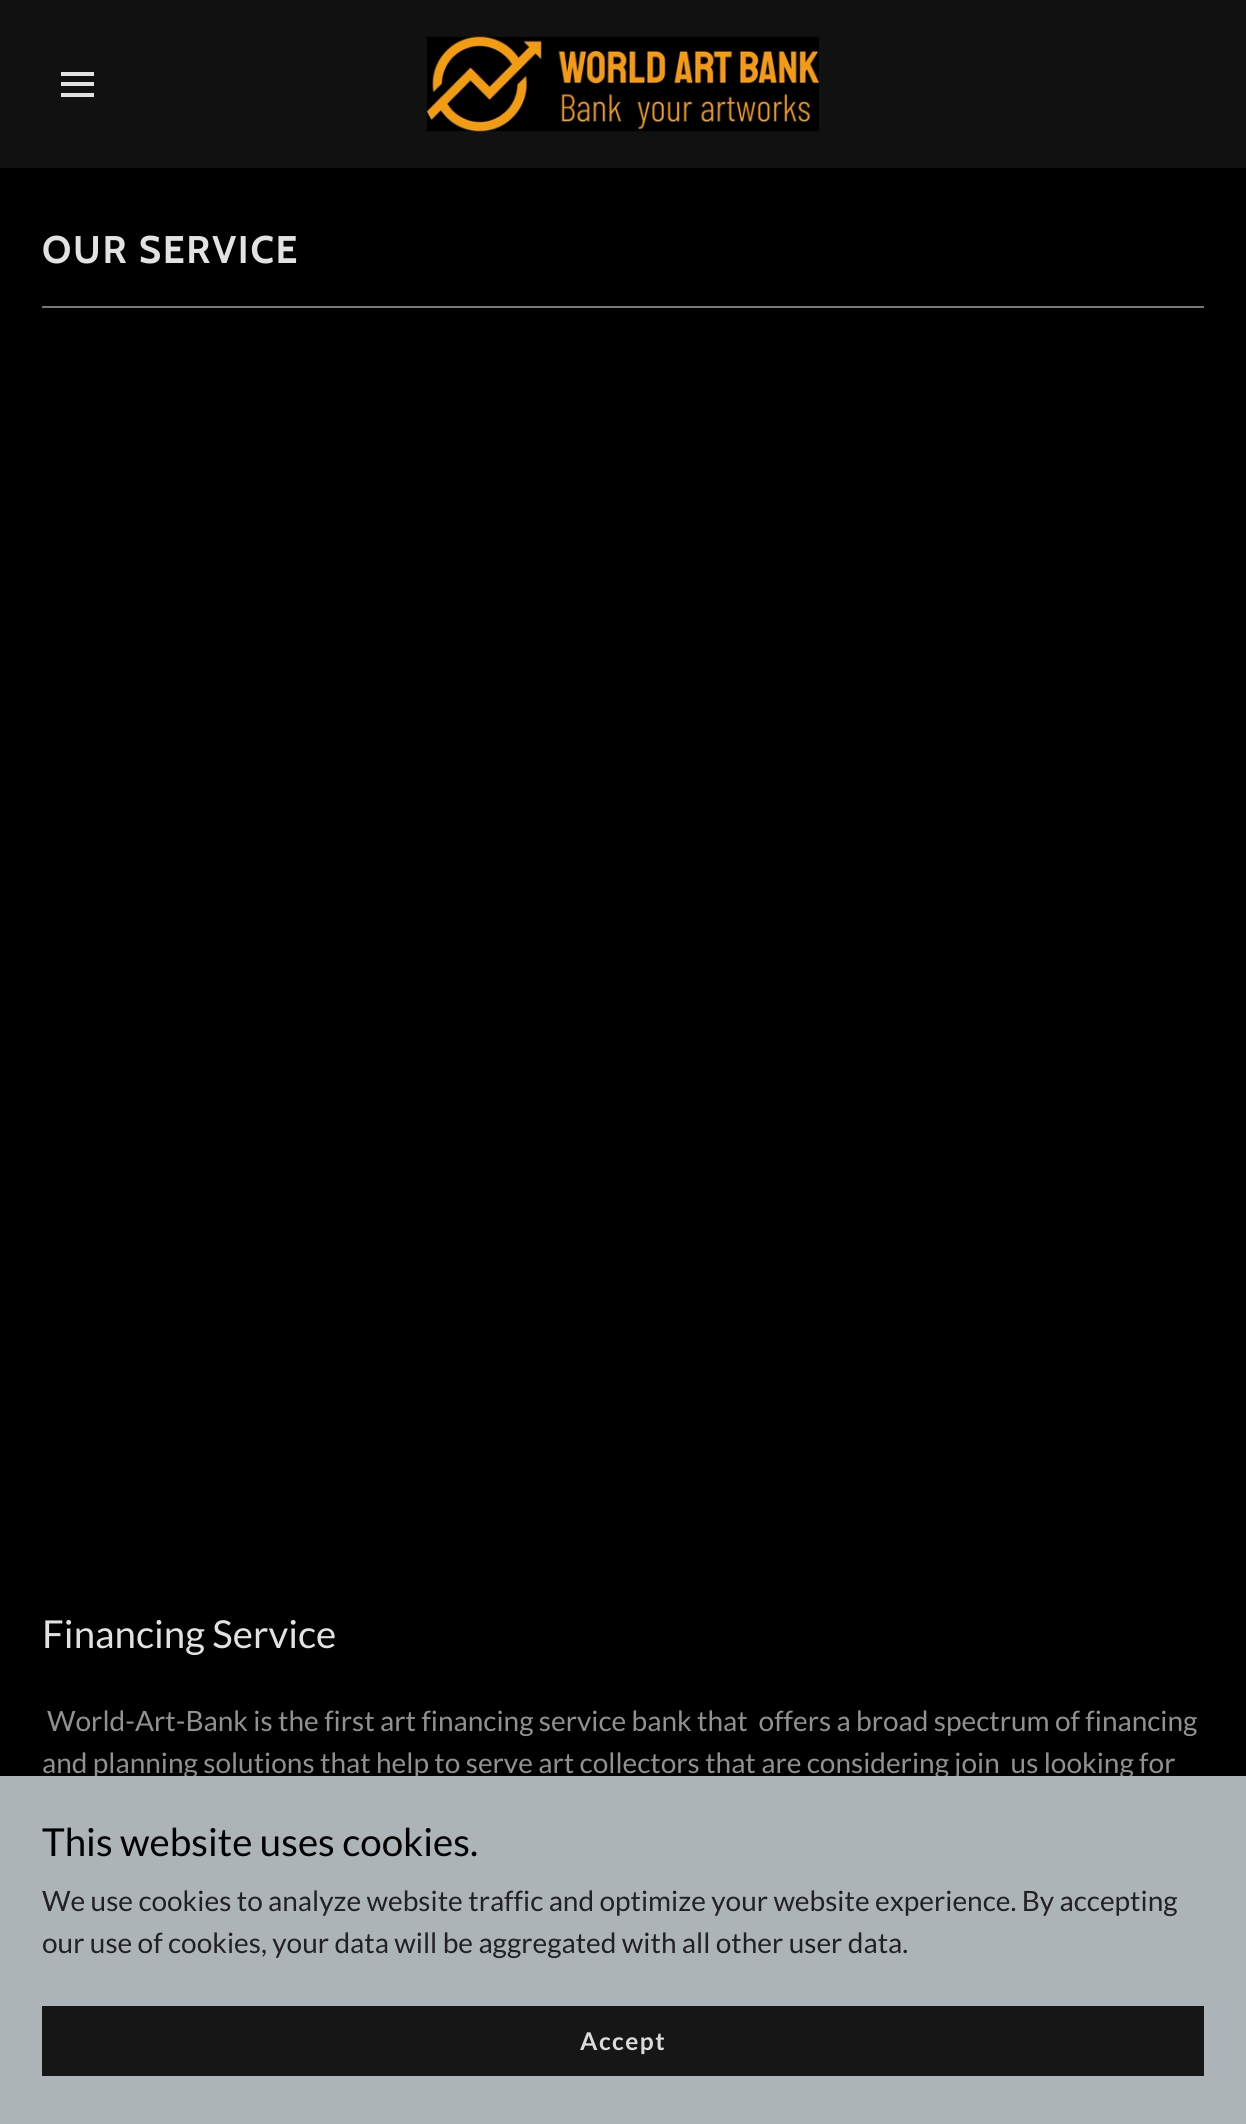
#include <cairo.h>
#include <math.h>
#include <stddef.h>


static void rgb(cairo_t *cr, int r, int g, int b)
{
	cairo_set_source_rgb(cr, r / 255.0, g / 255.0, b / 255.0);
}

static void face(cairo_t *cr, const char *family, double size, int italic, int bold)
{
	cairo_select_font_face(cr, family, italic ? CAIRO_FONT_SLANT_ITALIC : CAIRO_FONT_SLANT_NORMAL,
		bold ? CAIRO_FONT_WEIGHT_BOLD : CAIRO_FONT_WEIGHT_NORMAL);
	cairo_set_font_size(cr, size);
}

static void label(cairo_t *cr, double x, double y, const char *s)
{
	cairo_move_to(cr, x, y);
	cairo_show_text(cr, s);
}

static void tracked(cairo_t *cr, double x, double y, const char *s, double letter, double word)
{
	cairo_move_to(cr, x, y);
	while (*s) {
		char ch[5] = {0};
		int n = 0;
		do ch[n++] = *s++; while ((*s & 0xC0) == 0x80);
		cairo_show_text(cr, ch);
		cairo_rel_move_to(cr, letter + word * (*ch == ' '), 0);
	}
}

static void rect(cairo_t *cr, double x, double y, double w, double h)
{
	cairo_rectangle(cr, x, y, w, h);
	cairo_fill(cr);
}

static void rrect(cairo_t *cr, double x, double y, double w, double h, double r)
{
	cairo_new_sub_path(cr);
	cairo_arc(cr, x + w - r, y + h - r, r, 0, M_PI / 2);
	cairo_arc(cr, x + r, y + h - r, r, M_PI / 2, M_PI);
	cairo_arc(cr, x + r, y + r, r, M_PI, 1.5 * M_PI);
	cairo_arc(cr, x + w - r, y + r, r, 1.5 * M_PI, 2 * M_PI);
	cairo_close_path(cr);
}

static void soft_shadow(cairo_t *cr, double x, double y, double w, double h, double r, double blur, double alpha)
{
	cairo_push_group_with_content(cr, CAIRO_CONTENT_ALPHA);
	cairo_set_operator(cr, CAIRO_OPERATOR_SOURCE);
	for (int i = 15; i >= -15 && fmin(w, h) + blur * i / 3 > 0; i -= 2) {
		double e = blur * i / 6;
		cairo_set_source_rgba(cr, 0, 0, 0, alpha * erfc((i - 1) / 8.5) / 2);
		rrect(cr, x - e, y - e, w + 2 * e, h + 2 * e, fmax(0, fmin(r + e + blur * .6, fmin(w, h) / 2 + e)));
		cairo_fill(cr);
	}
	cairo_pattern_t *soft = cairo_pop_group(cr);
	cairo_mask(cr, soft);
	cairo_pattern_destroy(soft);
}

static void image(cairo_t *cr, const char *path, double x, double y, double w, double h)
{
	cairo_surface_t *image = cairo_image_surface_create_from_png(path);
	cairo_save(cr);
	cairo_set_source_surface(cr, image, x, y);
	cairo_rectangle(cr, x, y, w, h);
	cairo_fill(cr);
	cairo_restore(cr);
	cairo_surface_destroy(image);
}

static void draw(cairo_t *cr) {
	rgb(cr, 0, 0, 0);
	cairo_paint(cr);
	rgb(cr, 17, 17, 17);
	rect(cr, 0, 0, 1246, 168);
	rgb(cr, 226, 226, 226);
	rect(cr, 61, 72, 33, 4);
	rect(cr, 61, 82, 33, 4);
	rect(cr, 61, 93, 33, 4);
	image(cr, "image0.png", 427, 36, 392, 96);
	face(cr, "Cabin", 38.5, 0, 1);
	tracked(cr, 42, 263, "OUR SERVICE", 1.75, 0);
	rgb(cr, 119, 119, 119);
	rect(cr, 42, 306, 1162, 2);
	face(cr, "Lato", 38.5, 0, 0);
	rgb(cr, 226, 226, 226);
	label(cr, 42, 1648, "Financing Service");
	face(cr, "Lato", 28, 0, 0);
	rgb(cr, 145, 145, 145);
	label(cr, 47, 1731, "World-Art-Bank is the first art financing service bank that  offers a broad spectrum of financing");
	label(cr, 42, 1773, "and planning solutions that help to serve art collectors that are considering join  us looking for");
	rgb(cr, 0, 0, 0);
	soft_shadow(cr, 0, 1780, 1246, 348, 0, 5, 0.3);
	rgb(cr, 173, 180, 184);
	rect(cr, 0, 1776, 1246, 348);
	face(cr, "Lato", 38.5, 0, 0);
	rgb(cr, 0, 0, 0);
	label(cr, 42, 1856, "This website uses cookies.");
	face(cr, "Lato", 28, 0, 0);
	rgb(cr, 33, 33, 34);
	label(cr, 42, 1911, "We use cookies to analyze website traffic and optimize your website experience. By accepting");
	label(cr, 42, 1953, "our use of cookies, your data will be aggregated with all other user data.");
	rgb(cr, 22, 22, 22);
	rect(cr, 42, 2006, 1162, 70);
	face(cr, "Lato", 24.5, 0, 1);
	rgb(cr, 219, 219, 219);
	tracked(cr, 580, 2050, "Accept", 1.5, 0);
}

int main(void) {
	cairo_surface_t *surface = cairo_image_surface_create(CAIRO_FORMAT_RGB24, 1246, 2124);
	cairo_t *cr = cairo_create(surface);
	cairo_font_options_t *options = cairo_font_options_create();
	cairo_font_options_set_hint_metrics(options, CAIRO_HINT_METRICS_OFF);
	cairo_font_options_set_hint_style(options, CAIRO_HINT_STYLE_NONE);
	cairo_set_font_options(cr, options);
	cairo_set_miter_limit(cr, 4);
	draw(cr);
	cairo_surface_write_to_png(surface, "render.png");
	cairo_font_options_destroy(options);
	cairo_destroy(cr);
	cairo_surface_destroy(surface);
	return 0;
}
